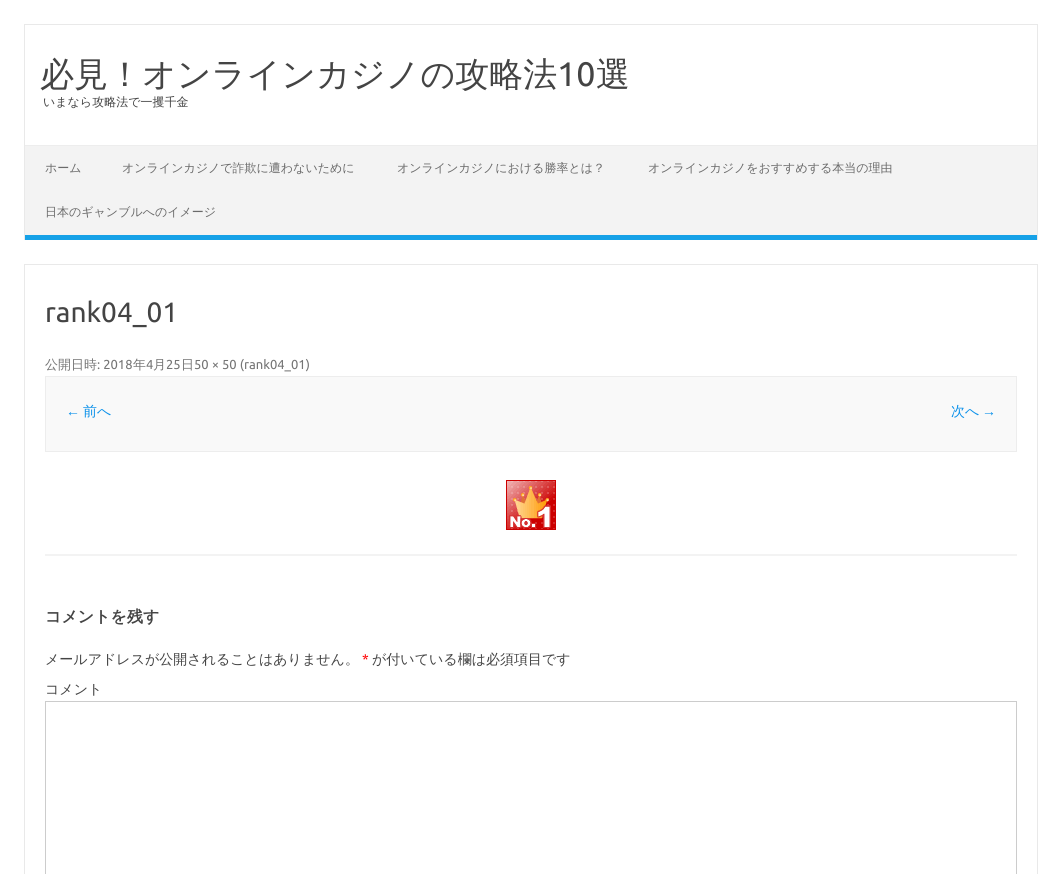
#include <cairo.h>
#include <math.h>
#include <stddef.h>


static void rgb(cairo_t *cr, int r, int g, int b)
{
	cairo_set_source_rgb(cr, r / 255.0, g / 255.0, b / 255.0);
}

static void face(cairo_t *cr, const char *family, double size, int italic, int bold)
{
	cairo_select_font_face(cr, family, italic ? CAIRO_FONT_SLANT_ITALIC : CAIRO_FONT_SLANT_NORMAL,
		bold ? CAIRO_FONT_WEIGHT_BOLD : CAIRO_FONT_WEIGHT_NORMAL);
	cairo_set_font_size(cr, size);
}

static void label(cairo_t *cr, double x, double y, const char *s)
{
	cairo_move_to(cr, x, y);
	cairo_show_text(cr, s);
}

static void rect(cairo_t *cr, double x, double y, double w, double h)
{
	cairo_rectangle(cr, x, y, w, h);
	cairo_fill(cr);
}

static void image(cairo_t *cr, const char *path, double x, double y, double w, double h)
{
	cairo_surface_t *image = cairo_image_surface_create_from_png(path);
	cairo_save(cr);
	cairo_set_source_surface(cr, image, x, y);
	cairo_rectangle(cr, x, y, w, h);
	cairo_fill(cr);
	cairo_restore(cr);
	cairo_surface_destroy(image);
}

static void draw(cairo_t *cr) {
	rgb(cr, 255, 255, 255);
	cairo_paint(cr);
	rgb(cr, 233, 233, 233);
	rect(cr, 24, 24, 1014, 1);
	rect(cr, 1037, 24, 1, 216);
	rect(cr, 24, 24, 1, 216);
	face(cr, "WenQuanYi Zen Hei Medium", 34, 0, 0);
	rgb(cr, 68, 68, 68);
	label(cr, 40, 86, "必見！オンラインカジノの攻略法");
	face(cr, "Ubuntu", 34, 0, 0);
	label(cr, 557, 86, "10");
	face(cr, "WenQuanYi Zen Hei Medium", 34, 0, 0);
	label(cr, 596, 86, "選");
	face(cr, "WenQuanYi Zen Hei Medium", 12, 0, 0);
	label(cr, 43, 106, "いまなら攻略法で一攫千金");
	rgb(cr, 243, 243, 243);
	rect(cr, 25, 146, 1012, 89);
	rgb(cr, 237, 237, 237);
	rect(cr, 25, 145, 1012, 1);
	rgb(cr, 22, 161, 231);
	rect(cr, 25, 235, 1012, 5);
	rgb(cr, 106, 106, 106);
	label(cr, 45, 172, "ホーム");
	label(cr, 122, 172, "オンラインカジノで詐欺に遭わないために");
	label(cr, 397, 172, "オンラインカジノにおける勝率とは？");
	label(cr, 648, 172, "オンラインカジノをおすすめする本当の理由");
	label(cr, 45, 216, "日本のギャンブルへのイメージ");
	cairo_rectangle(cr, 24.5, 264.5, 1013, 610);
	rgb(cr, 233, 233, 233);
	cairo_set_line_width(cr, 1);
	cairo_stroke(cr);
	rgb(cr, 243, 243, 243);
	rect(cr, 45, 554, 972, 2);
	face(cr, "Ubuntu", 28, 0, 0);
	rgb(cr, 68, 68, 68);
	label(cr, 45, 322, "rank04_01");
	face(cr, "WenQuanYi Zen Hei Medium", 13, 0, 0);
	rgb(cr, 117, 117, 117);
	label(cr, 45, 369, "公開日時");
	face(cr, "Ubuntu", 13, 0, 0);
	label(cr, 97, 369, ": 2018");
	face(cr, "WenQuanYi Zen Hei Medium", 13, 0, 0);
	label(cr, 133, 369, "年");
	face(cr, "Ubuntu", 13, 0, 0);
	label(cr, 146, 369, "4");
	face(cr, "WenQuanYi Zen Hei Medium", 13, 0, 0);
	label(cr, 153, 369, "月");
	face(cr, "Ubuntu", 13, 0, 0);
	label(cr, 166, 369, "25");
	face(cr, "WenQuanYi Zen Hei Medium", 13, 0, 0);
	label(cr, 181, 369, "日");
	face(cr, "Ubuntu", 13, 0, 0);
	label(cr, 194, 369, "50 × 50 (rank04_01)");
	rgb(cr, 249, 249, 249);
	cairo_rectangle(cr, 45.5, 376.5, 971, 75);
	cairo_fill_preserve(cr);
	rgb(cr, 237, 237, 237);
	cairo_stroke(cr);
	face(cr, "Liberation Sans", 14, 0, 0);
	rgb(cr, 11, 145, 234);
	label(cr, 66, 416, "←");
	face(cr, "WenQuanYi Zen Hei Medium", 14, 0, 0);
	label(cr, 83, 416, "前へ");
	label(cr, 951, 416, "次へ");
	face(cr, "Liberation Sans", 14, 0, 0);
	label(cr, 982, 416, "→");
	image(cr, "image0.png", 506, 480, 50, 50);
	face(cr, "WenQuanYi Zen Hei", 16, 0, 1);
	rgb(cr, 68, 68, 68);
	label(cr, 45, 622, "コメントを残す");
	face(cr, "WenQuanYi Zen Hei Medium", 14, 0, 0);
	label(cr, 45, 664, "メールアドレスが公開されることはありません。");
	face(cr, "Ubuntu", 14, 0, 0);
	rgb(cr, 255, 0, 0);
	label(cr, 362, 664, "*");
	face(cr, "WenQuanYi Zen Hei Medium", 14, 0, 0);
	rgb(cr, 68, 68, 68);
	label(cr, 372, 664, "が付いている欄は必須項目です");
	label(cr, 45, 694, "コメント");
	cairo_rectangle(cr, 45.5, 701.5, 971, 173);
	rgb(cr, 204, 204, 204);
	cairo_stroke(cr);
}

int main(void) {
	cairo_surface_t *surface = cairo_image_surface_create(CAIRO_FORMAT_RGB24, 1062, 874);
	cairo_t *cr = cairo_create(surface);
	cairo_font_options_t *options = cairo_font_options_create();
	cairo_font_options_set_hint_metrics(options, CAIRO_HINT_METRICS_OFF);
	cairo_font_options_set_hint_style(options, CAIRO_HINT_STYLE_NONE);
	cairo_set_font_options(cr, options);
	cairo_set_miter_limit(cr, 4);
	draw(cr);
	cairo_surface_write_to_png(surface, "render.png");
	cairo_font_options_destroy(options);
	cairo_destroy(cr);
	cairo_surface_destroy(surface);
	return 0;
}
